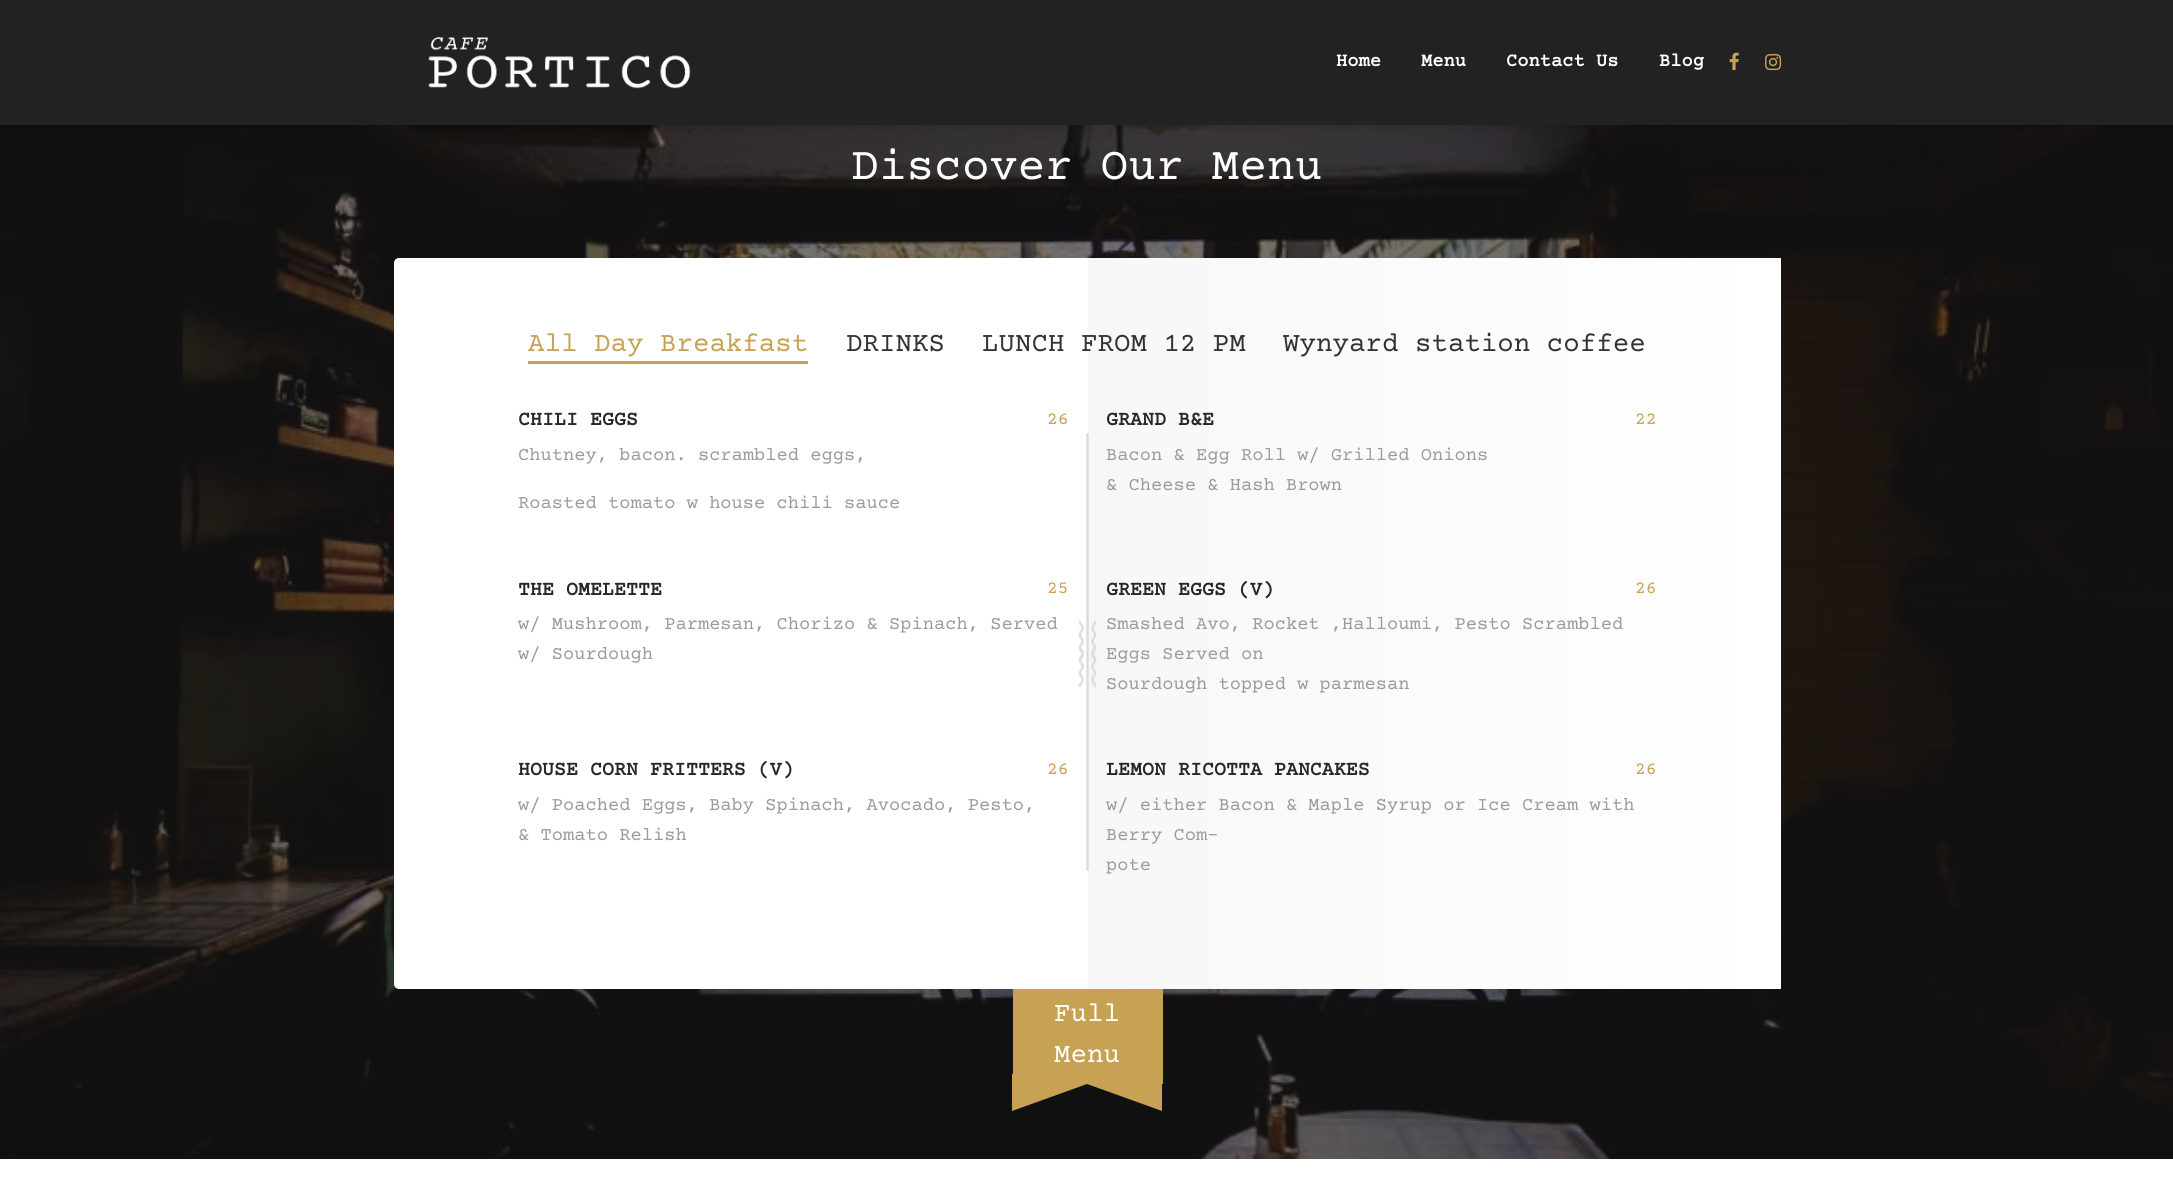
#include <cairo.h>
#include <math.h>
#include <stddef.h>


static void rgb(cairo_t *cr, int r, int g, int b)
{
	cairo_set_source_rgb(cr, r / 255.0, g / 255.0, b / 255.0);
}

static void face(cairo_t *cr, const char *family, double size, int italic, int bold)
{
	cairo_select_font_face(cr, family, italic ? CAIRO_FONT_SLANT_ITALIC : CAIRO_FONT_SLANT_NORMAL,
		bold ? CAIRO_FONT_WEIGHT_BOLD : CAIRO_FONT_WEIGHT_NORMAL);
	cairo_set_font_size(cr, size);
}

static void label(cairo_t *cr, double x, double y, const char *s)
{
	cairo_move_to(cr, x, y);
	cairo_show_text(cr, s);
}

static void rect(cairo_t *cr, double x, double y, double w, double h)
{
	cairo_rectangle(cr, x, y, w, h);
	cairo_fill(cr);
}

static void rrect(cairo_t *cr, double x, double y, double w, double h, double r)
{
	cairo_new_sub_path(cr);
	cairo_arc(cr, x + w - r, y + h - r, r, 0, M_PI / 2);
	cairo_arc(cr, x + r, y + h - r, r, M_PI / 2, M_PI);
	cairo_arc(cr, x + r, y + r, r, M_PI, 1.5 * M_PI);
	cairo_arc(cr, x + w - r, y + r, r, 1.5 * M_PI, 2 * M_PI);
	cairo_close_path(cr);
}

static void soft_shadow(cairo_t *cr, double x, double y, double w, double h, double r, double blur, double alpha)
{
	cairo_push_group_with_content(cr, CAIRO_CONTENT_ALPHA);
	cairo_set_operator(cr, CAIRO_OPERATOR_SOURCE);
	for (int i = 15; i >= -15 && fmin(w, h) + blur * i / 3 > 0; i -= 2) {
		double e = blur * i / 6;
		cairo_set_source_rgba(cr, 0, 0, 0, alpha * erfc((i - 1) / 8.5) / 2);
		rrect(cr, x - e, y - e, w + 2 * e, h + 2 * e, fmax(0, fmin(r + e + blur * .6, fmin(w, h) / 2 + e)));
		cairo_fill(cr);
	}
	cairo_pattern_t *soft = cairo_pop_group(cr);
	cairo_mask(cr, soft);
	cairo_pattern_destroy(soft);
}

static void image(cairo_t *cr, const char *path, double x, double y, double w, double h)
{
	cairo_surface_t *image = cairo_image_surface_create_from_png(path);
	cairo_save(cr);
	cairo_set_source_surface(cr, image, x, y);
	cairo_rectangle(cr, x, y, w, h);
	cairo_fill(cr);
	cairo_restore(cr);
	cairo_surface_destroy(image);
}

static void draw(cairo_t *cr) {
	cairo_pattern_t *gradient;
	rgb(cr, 255, 255, 255);
	cairo_paint(cr);
	image(cr, "image3.png", 0, 125, 2173, 1034);
	rgb(cr, 0, 0, 0);
	soft_shadow(cr, 0, 4, 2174, 125, 0, 2.5, 0.07);
	rgb(cr, 34, 34, 34);
	rect(cr, 0, 0, 2173, 125);
	image(cr, "image0.png", 428, 37, 263, 52);
	face(cr, "Courier Prime", 18.75, 0, 1);
	rgb(cr, 255, 255, 255);
	label(cr, 1336, 66, "Home");
	label(cr, 1421, 66, "Menu");
	label(cr, 1506, 66, "Contact Us");
	label(cr, 1659, 66, "Blog");
	image(cr, "image1.png", 1729, 52, 10, 19);
	image(cr, "image2.png", 1765, 54, 17, 17);
	face(cr, "Courier Prime", 46.25, 0, 0);
	label(cr, 851, 179, "Discover Our Menu");
	rrect(cr, 394, 258, 1387, 731, 5);
	cairo_fill(cr);
	gradient = cairo_pattern_create_linear(1088, 258, 1781, 258);
	cairo_pattern_add_color_stop_rgba(gradient, 0, 0.969, 0.969, 0.969, 1);
	cairo_pattern_add_color_stop_rgba(gradient, 1, 1, 1, 1, 1);
	cairo_set_source(cr, gradient);
	cairo_pattern_destroy(gradient);
	rect(cr, 1088, 258, 693, 731);
	face(cr, "Courier Prime", 27.5, 0, 0);
	rgb(cr, 199, 162, 84);
	label(cr, 528, 351, "All Day Breakfast");
	rect(cr, 528, 361, 280, 3);
	rgb(cr, 51, 51, 51);
	label(cr, 846, 351, "DRINKS");
	label(cr, 982, 351, "LUNCH FROM 12 PM");
	label(cr, 1283, 351, "Wynyard station coffee");
	face(cr, "Courier Prime", 20, 0, 1);
	rgb(cr, 40, 40, 40);
	label(cr, 518, 425, "CHILI EGGS");
	face(cr, "Courier Prime", 18, 0, 0);
	rgb(cr, 199, 162, 84);
	label(cr, 1047, 424, "26");
	face(cr, "Courier Prime", 18.75, 0, 0);
	rgb(cr, 155, 155, 155);
	label(cr, 518, 460, "Chutney, bacon. scrambled eggs,");
	label(cr, 518, 508, "Roasted tomato w house chili sauce");
	face(cr, "Courier Prime", 20, 0, 1);
	rgb(cr, 40, 40, 40);
	label(cr, 1106, 425, "GRAND B&E");
	face(cr, "Courier Prime", 18, 0, 0);
	rgb(cr, 199, 162, 84);
	label(cr, 1635, 424, "22");
	face(cr, "Courier Prime", 18.75, 0, 0);
	rgb(cr, 155, 155, 155);
	label(cr, 1106, 460, "Bacon & Egg Roll w/ Grilled Onions");
	label(cr, 1106, 490, "& Cheese & Hash Brown");
	face(cr, "Courier Prime", 20, 0, 1);
	rgb(cr, 40, 40, 40);
	label(cr, 518, 595, "THE OMELETTE");
	face(cr, "Courier Prime", 18, 0, 0);
	rgb(cr, 199, 162, 84);
	label(cr, 1047, 593, "25");
	face(cr, "Courier Prime", 18.75, 0, 0);
	rgb(cr, 155, 155, 155);
	label(cr, 518, 629, "w/ Mushroom, Parmesan, Chorizo & Spinach, Served");
	label(cr, 518, 659, "w/ Sourdough");
	face(cr, "Courier Prime", 20, 0, 1);
	rgb(cr, 40, 40, 40);
	label(cr, 1106, 595, "GREEN EGGS (V)");
	face(cr, "Courier Prime", 18, 0, 0);
	rgb(cr, 199, 162, 84);
	label(cr, 1635, 593, "26");
	face(cr, "Courier Prime", 18.75, 0, 0);
	rgb(cr, 155, 155, 155);
	label(cr, 1106, 629, "Smashed Avo, Rocket ,Halloumi, Pesto Scrambled");
	label(cr, 1106, 659, "Eggs Served on");
	label(cr, 1106, 689, "Sourdough topped w parmesan");
	face(cr, "Courier Prime", 20, 0, 1);
	rgb(cr, 40, 40, 40);
	label(cr, 518, 775, "HOUSE CORN FRITTERS (V)");
	face(cr, "Courier Prime", 18, 0, 0);
	rgb(cr, 199, 162, 84);
	label(cr, 1047, 774, "26");
	face(cr, "Courier Prime", 18.75, 0, 0);
	rgb(cr, 155, 155, 155);
	label(cr, 518, 810, "w/ Poached Eggs, Baby Spinach, Avocado, Pesto,");
	label(cr, 518, 840, "& Tomato Relish");
	face(cr, "Courier Prime", 20, 0, 1);
	rgb(cr, 40, 40, 40);
	label(cr, 1106, 775, "LEMON RICOTTA PANCAKES");
	face(cr, "Courier Prime", 18, 0, 0);
	rgb(cr, 199, 162, 84);
	label(cr, 1635, 774, "26");
	face(cr, "Courier Prime", 18.75, 0, 0);
	rgb(cr, 155, 155, 155);
	label(cr, 1106, 810, "w/ either Bacon & Maple Syrup or Ice Cream with");
	label(cr, 1106, 840, "Berry Com-");
	label(cr, 1106, 870, "pote");
	image(cr, "image4.png", 1078, 433, 19, 438);
	rgb(cr, 199, 162, 84);
	cairo_new_path(cr);
	cairo_move_to(cr, 1012, 1074);
	cairo_line_to(cr, 1087, 1046);
	cairo_line_to(cr, 1087, 1084);
	cairo_line_to(cr, 1012, 1111);
	cairo_close_path(cr);
	cairo_fill(cr);
	cairo_new_path(cr);
	cairo_move_to(cr, 1087, 1046);
	cairo_line_to(cr, 1162, 1074);
	cairo_line_to(cr, 1162, 1111);
	cairo_line_to(cr, 1087, 1084);
	cairo_close_path(cr);
	cairo_fill(cr);
	rect(cr, 1013, 989, 150, 95);
	face(cr, "Courier Prime", 27.5, 0, 0);
	rgb(cr, 255, 255, 255);
	label(cr, 1054, 1021, "Full");
	label(cr, 1054, 1062, "Menu");
}

int main(void) {
	cairo_surface_t *surface = cairo_image_surface_create(CAIRO_FORMAT_RGB24, 2173, 1186);
	cairo_t *cr = cairo_create(surface);
	cairo_font_options_t *options = cairo_font_options_create();
	cairo_font_options_set_hint_metrics(options, CAIRO_HINT_METRICS_OFF);
	cairo_font_options_set_hint_style(options, CAIRO_HINT_STYLE_NONE);
	cairo_set_font_options(cr, options);
	cairo_set_miter_limit(cr, 4);
	draw(cr);
	cairo_surface_write_to_png(surface, "render.png");
	cairo_font_options_destroy(options);
	cairo_destroy(cr);
	cairo_surface_destroy(surface);
	return 0;
}
